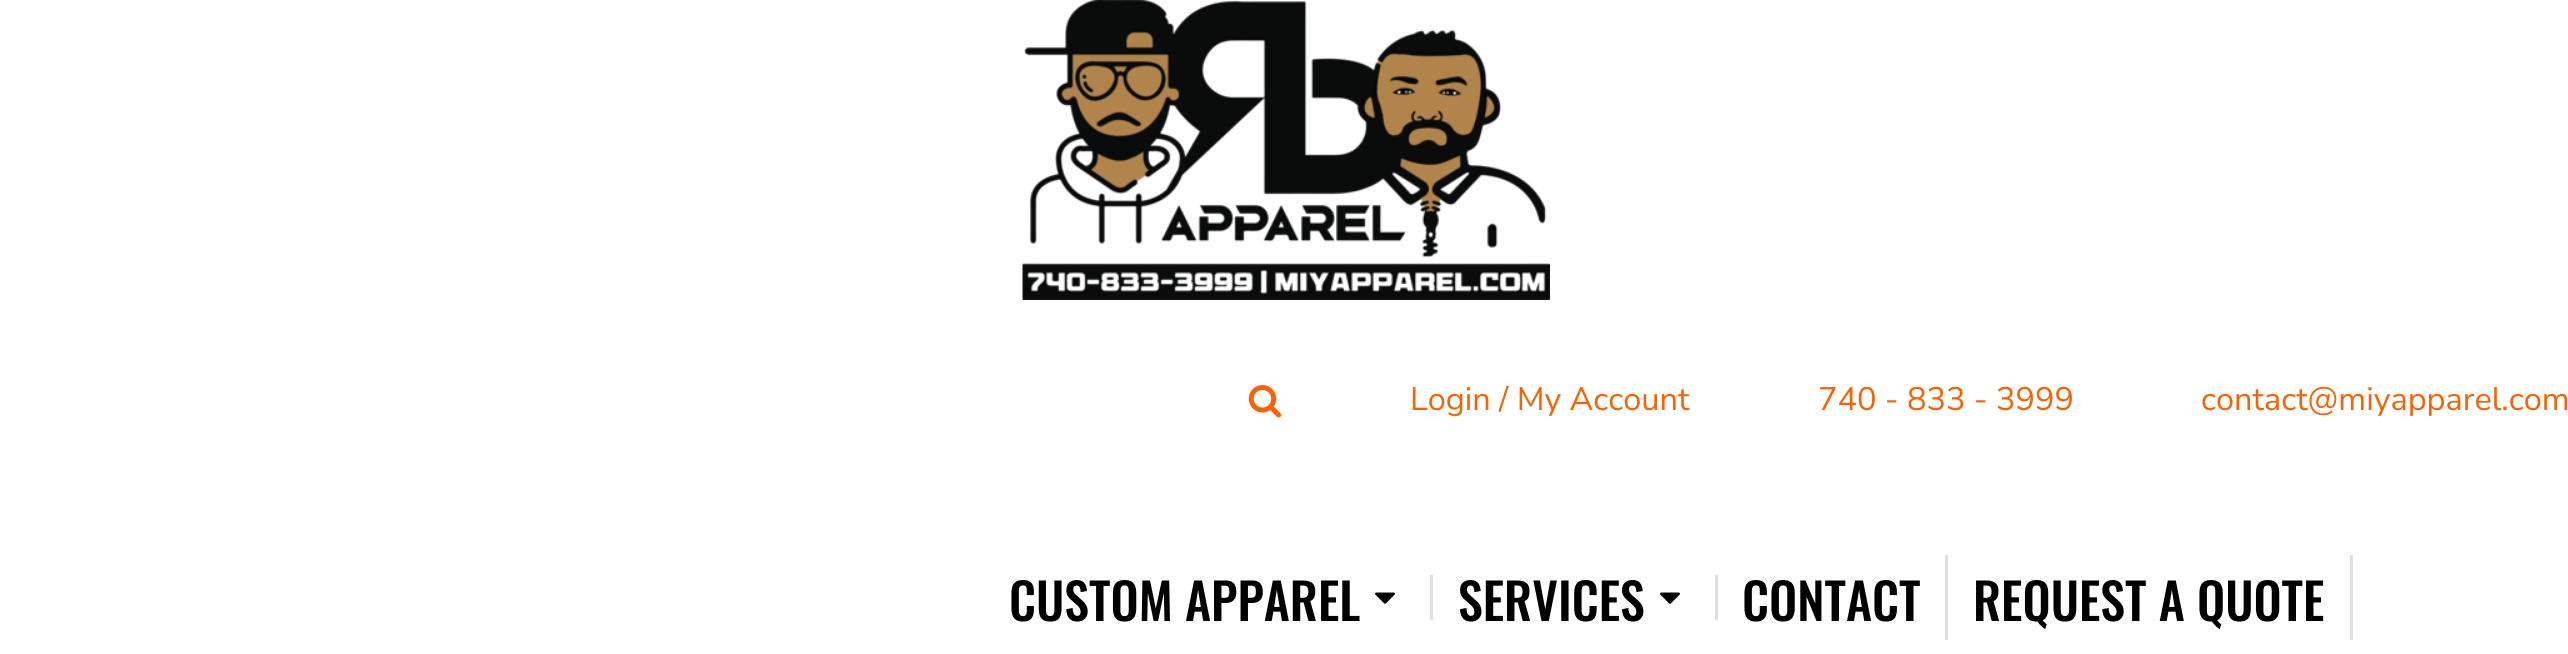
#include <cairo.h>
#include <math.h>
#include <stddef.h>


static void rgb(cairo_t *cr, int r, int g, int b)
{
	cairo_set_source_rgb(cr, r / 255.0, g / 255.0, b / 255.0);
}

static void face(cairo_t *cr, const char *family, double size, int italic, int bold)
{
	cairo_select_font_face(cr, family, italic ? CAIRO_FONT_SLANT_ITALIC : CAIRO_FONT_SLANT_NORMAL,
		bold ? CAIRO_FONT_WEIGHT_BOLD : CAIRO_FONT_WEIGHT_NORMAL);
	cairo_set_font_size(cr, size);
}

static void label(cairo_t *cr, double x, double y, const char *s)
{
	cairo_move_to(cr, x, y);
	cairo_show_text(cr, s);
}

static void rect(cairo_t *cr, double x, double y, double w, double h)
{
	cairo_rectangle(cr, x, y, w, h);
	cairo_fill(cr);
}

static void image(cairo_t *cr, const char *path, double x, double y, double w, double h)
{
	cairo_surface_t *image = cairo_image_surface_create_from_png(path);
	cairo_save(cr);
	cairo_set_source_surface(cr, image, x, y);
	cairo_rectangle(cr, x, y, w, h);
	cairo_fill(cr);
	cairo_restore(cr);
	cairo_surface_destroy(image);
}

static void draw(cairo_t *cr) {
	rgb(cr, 255, 255, 255);
	cairo_paint(cr);
	image(cr, "image0.png", 1022, 0, 528, 300);
	image(cr, "image1.png", 1248, 385, 34, 33);
	face(cr, "Nunito Sans ExtraLight", 32.5, 0, 0);
	rgb(cr, 245, 99, 5);
	label(cr, 1410, 410, "Login / My Account");
	label(cr, 1818, 410, "740 - 833 - 3999");
	label(cr, 2201, 410, "contact@miyapparel.com");
	rgb(cr, 223, 223, 223);
	rect(cr, 1430, 575, 3, 45);
	face(cr, "Oswald Medium", 50, 0, 0);
	rgb(cr, 0, 0, 0);
	label(cr, 1009, 621, "CUSTOM APPAREL");
	image(cr, "image2.png", 1375, 592, 20, 12);
	rgb(cr, 223, 223, 223);
	rect(cr, 1715, 575, 3, 45);
	rgb(cr, 0, 0, 0);
	label(cr, 1458, 621, "SERVICES");
	image(cr, "image2.png", 1660, 592, 20, 12);
	label(cr, 1742, 621, "CONTACT");
	rgb(cr, 223, 223, 223);
	rect(cr, 1945, 555, 3, 85);
	rgb(cr, 0, 0, 0);
	label(cr, 1973, 621, "REQUEST A QUOTE");
	rgb(cr, 223, 223, 223);
	rect(cr, 2350, 555, 3, 85);
}

int main(void) {
	cairo_surface_t *surface = cairo_image_surface_create(CAIRO_FORMAT_RGB24, 2568, 654);
	cairo_t *cr = cairo_create(surface);
	cairo_font_options_t *options = cairo_font_options_create();
	cairo_font_options_set_hint_metrics(options, CAIRO_HINT_METRICS_OFF);
	cairo_font_options_set_hint_style(options, CAIRO_HINT_STYLE_NONE);
	cairo_set_font_options(cr, options);
	cairo_set_miter_limit(cr, 4);
	draw(cr);
	cairo_surface_write_to_png(surface, "render.png");
	cairo_font_options_destroy(options);
	cairo_destroy(cr);
	cairo_surface_destroy(surface);
	return 0;
}
